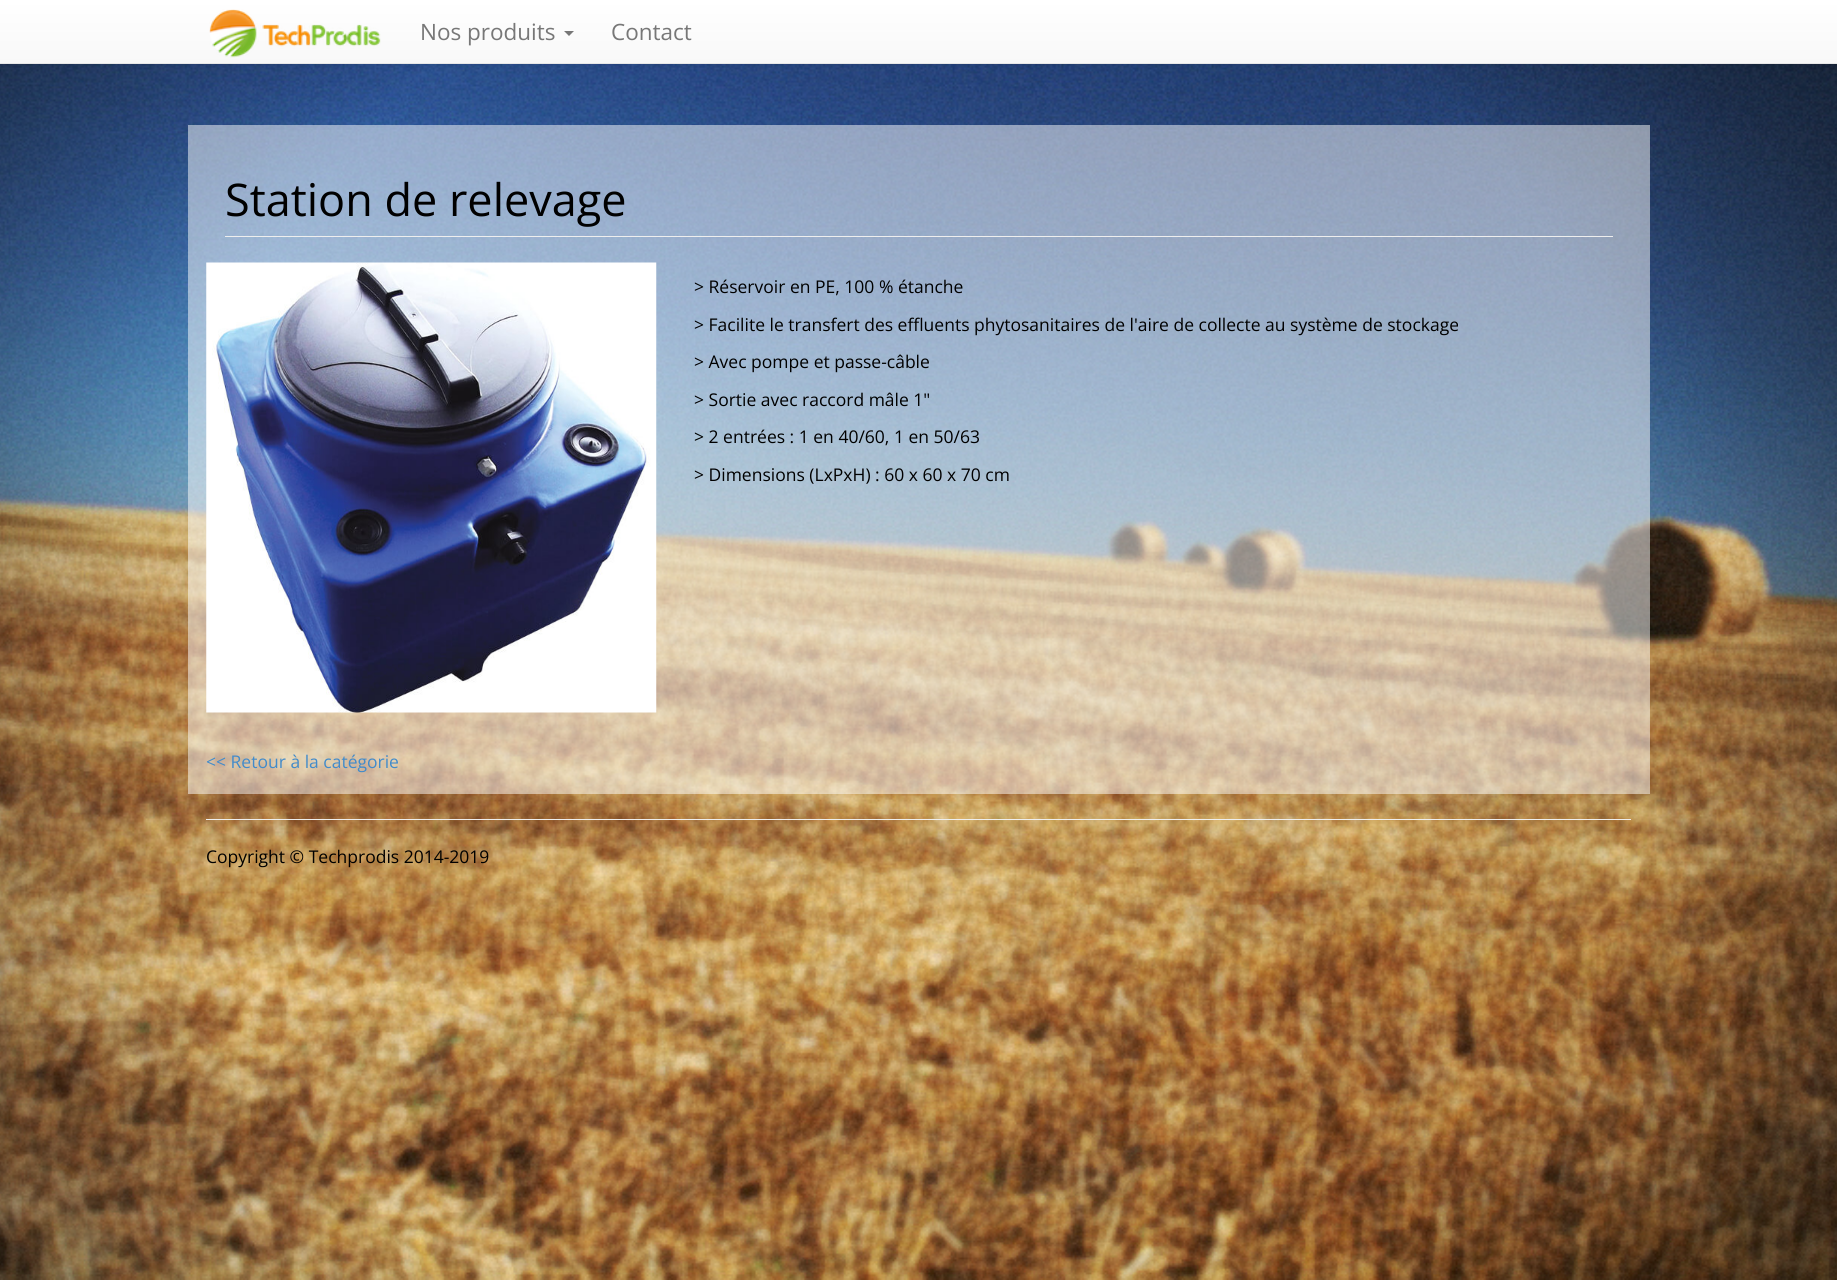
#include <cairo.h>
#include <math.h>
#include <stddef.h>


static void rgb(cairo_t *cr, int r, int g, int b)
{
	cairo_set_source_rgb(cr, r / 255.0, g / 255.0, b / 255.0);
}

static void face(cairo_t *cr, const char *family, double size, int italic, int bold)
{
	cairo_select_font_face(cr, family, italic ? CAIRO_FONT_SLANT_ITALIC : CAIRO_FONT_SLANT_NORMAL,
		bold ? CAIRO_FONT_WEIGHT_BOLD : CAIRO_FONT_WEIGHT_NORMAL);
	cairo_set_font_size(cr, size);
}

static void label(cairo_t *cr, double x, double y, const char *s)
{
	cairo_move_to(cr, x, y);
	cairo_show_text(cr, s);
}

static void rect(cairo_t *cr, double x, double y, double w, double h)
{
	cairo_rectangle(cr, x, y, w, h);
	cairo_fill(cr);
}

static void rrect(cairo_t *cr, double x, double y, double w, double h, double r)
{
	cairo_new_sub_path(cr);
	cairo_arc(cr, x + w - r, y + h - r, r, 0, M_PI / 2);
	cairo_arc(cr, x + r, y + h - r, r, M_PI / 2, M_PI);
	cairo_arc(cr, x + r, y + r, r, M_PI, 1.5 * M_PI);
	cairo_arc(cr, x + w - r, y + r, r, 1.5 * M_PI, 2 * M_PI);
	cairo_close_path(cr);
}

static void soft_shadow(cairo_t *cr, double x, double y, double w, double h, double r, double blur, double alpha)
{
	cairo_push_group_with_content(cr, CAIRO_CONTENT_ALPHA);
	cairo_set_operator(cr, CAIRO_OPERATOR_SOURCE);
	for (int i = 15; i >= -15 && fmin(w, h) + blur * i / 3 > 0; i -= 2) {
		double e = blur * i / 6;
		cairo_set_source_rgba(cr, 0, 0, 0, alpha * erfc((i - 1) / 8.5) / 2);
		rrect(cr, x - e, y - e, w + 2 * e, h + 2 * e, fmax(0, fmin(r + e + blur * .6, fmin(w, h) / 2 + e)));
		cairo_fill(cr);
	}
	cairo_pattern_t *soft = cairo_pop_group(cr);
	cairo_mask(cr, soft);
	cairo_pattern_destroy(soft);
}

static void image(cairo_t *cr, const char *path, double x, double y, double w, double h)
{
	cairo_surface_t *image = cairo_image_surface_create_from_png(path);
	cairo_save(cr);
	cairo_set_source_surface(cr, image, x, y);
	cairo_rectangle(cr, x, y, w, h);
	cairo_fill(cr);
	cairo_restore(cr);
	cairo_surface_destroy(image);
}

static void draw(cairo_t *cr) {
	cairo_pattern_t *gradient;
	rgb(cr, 255, 255, 255);
	cairo_paint(cr);
	image(cr, "image0.png", 0, 64, 1837, 1216);
	rgb(cr, 0, 0, 0);
	soft_shadow(cr, 0, 1, 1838, 64, 0, 3, 0.07);
	gradient = cairo_pattern_create_linear(919, 0, 919, 63);
	cairo_pattern_add_color_stop_rgba(gradient, 0, 1, 1, 1, 1);
	cairo_pattern_add_color_stop_rgba(gradient, 1, 0.973, 0.973, 0.973, 1);
	cairo_set_source(cr, gradient);
	cairo_pattern_destroy(gradient);
	rect(cr, 0, 0, 1837, 63);
	rgb(cr, 231, 231, 231);
	rect(cr, 0, 63, 1837, 1);
	image(cr, "image1.png", 209, 9, 172, 49);
	face(cr, "Open Sans", 22.5, 0, 0);
	rgb(cr, 119, 119, 119);
	label(cr, 420, 40, "Nos produits");
	cairo_new_path(cr);
	cairo_move_to(cr, 564, 31);
	cairo_line_to(cr, 574, 31);
	cairo_line_to(cr, 569, 36);
	cairo_close_path(cr);
	cairo_fill(cr);
	label(cr, 611, 40, "Contact");
	cairo_set_source_rgba(cr, 1, 1, 1, 0.5);
	rect(cr, 188, 125, 1462, 669);
	rgb(cr, 238, 238, 238);
	rect(cr, 225, 236, 1388, 1);
	face(cr, "Open Sans", 45, 0, 0);
	rgb(cr, 0, 0, 0);
	label(cr, 225, 216, "Station de relevage");
	image(cr, "image2.png", 206, 262, 451, 451);
	face(cr, "Open Sans", 17.5, 0, 0);
	label(cr, 694, 293, "> Réservoir en PE, 100 % étanche");
	label(cr, 694, 331, "> Facilite le transfert des effluents phytosanitaires de l'aire de collecte au système de stockage");
	label(cr, 694, 368, "> Avec pompe et passe-câble");
	label(cr, 694, 406, "> Sortie avec raccord mâle 1\"");
	label(cr, 694, 443, "> 2 entrées : 1 en 40/60, 1 en 50/63");
	label(cr, 694, 481, "> Dimensions (LxPxH) : 60 x 60 x 70 cm");
	rgb(cr, 66, 139, 202);
	label(cr, 206, 768, "<< Retour à la catégorie");
	rgb(cr, 238, 238, 238);
	rect(cr, 206, 819, 1425, 1);
	rgb(cr, 0, 0, 0);
	label(cr, 206, 863, "Copyright © Techprodis 2014-2019");
}

int main(void) {
	cairo_surface_t *surface = cairo_image_surface_create(CAIRO_FORMAT_RGB24, 1837, 1280);
	cairo_t *cr = cairo_create(surface);
	cairo_font_options_t *options = cairo_font_options_create();
	cairo_font_options_set_hint_metrics(options, CAIRO_HINT_METRICS_OFF);
	cairo_font_options_set_hint_style(options, CAIRO_HINT_STYLE_NONE);
	cairo_set_font_options(cr, options);
	cairo_set_miter_limit(cr, 4);
	draw(cr);
	cairo_surface_write_to_png(surface, "render.png");
	cairo_font_options_destroy(options);
	cairo_destroy(cr);
	cairo_surface_destroy(surface);
	return 0;
}
